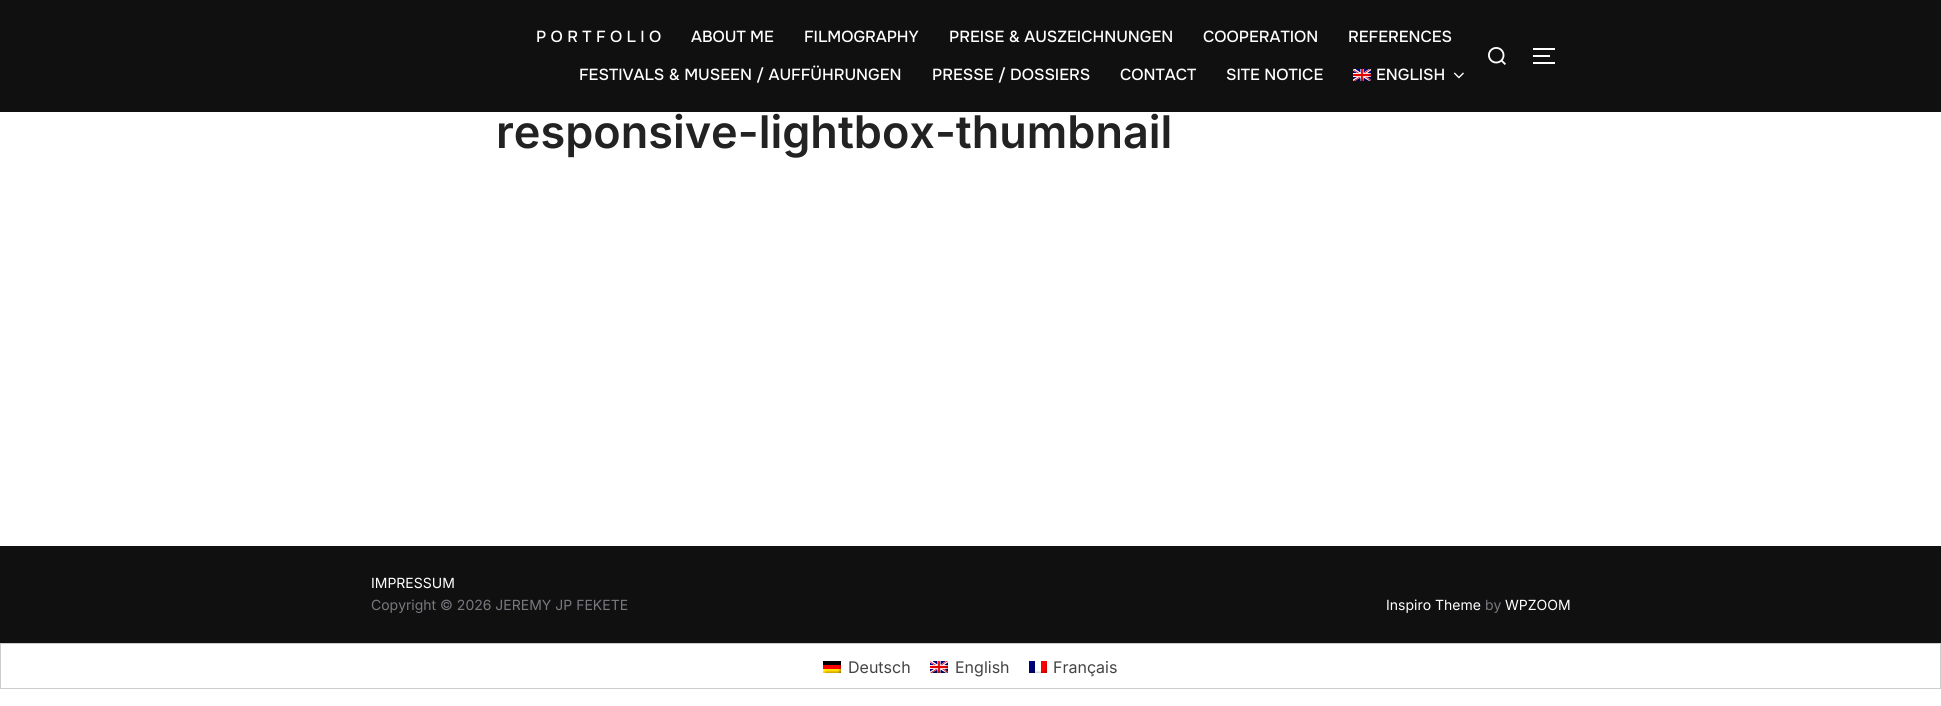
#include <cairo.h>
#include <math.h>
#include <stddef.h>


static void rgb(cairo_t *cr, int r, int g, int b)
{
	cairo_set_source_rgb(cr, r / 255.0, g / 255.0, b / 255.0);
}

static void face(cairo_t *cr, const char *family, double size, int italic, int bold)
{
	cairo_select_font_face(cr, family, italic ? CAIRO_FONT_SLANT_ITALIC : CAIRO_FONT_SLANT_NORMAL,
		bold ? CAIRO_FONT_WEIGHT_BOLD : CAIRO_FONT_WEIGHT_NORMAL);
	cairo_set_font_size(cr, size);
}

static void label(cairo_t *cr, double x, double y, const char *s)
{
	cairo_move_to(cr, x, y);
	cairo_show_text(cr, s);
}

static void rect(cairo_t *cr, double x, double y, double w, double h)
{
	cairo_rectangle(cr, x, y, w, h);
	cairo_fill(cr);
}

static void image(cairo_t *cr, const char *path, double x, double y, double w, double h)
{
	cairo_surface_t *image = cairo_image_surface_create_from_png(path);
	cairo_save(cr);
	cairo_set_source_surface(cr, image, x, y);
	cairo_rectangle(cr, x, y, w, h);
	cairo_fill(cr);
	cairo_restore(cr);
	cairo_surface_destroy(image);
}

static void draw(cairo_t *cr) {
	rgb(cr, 255, 255, 255);
	cairo_paint(cr);
	rgb(cr, 16, 16, 16);
	rect(cr, 0, 0, 1941, 112);
	face(cr, "Onest Medium", 16, 0, 0);
	rgb(cr, 255, 255, 255);
	label(cr, 536, 42, "P O R T F O L I O");
	label(cr, 691, 42, "ABOUT ME");
	label(cr, 804, 42, "FILMOGRAPHY");
	label(cr, 949, 42, "PREISE & AUSZEICHNUNGEN");
	label(cr, 1203, 42, "COOPERATION");
	label(cr, 1348, 42, "REFERENCES");
	label(cr, 579, 80, "FESTIVALS & MUSEEN / AUFFÜHRUNGEN");
	label(cr, 932, 80, "PRESSE / DOSSIERS");
	label(cr, 1120, 80, "CONTACT");
	label(cr, 1226, 80, "SITE NOTICE");
	image(cr, "image0.png", 1353, 69, 18, 12);
	label(cr, 1376, 80, "ENGLISH");
	image(cr, "image1.png", 1453, 72, 11, 7);
	image(cr, "image2.png", 1488, 47, 18, 18);
	rect(cr, 1533, 48, 22, 2);
	rect(cr, 1533, 55, 17, 2);
	rect(cr, 1533, 62, 22, 2);
	face(cr, "Inter SemiBold", 45, 0, 0);
	rgb(cr, 34, 34, 34);
	label(cr, 496, 148, "responsive-lightbox-thumbnail");
	rgb(cr, 16, 16, 16);
	rect(cr, 0, 546, 1941, 97);
	face(cr, "Inter", 14, 0, 0);
	rgb(cr, 255, 255, 255);
	label(cr, 371, 588, "IMPRESSUM");
	rgb(cr, 120, 120, 127);
	label(cr, 371, 610, "Copyright © 2026 JEREMY JP FEKETE");
	rgb(cr, 255, 255, 255);
	label(cr, 1386, 610, "Inspiro Theme");
	rgb(cr, 120, 120, 127);
	label(cr, 1485, 610, "by");
	rgb(cr, 255, 255, 255);
	label(cr, 1505, 610, "WPZOOM");
	cairo_rectangle(cr, 0.5, 643.5, 1940, 45);
	rgb(cr, 205, 205, 205);
	cairo_set_line_width(cr, 1);
	cairo_stroke(cr);
	image(cr, "image3.png", 823, 661, 18, 12);
	face(cr, "Inter", 16, 0, 0);
	rgb(cr, 68, 68, 68);
	label(cr, 848, 673, "Deutsch");
	image(cr, "image0.png", 930, 661, 18, 12);
	label(cr, 955, 673, "English");
	image(cr, "image4.png", 1029, 661, 18, 12);
	label(cr, 1053, 673, "Français");
}

int main(void) {
	cairo_surface_t *surface = cairo_image_surface_create(CAIRO_FORMAT_RGB24, 1941, 706);
	cairo_t *cr = cairo_create(surface);
	cairo_font_options_t *options = cairo_font_options_create();
	cairo_font_options_set_hint_metrics(options, CAIRO_HINT_METRICS_OFF);
	cairo_font_options_set_hint_style(options, CAIRO_HINT_STYLE_NONE);
	cairo_set_font_options(cr, options);
	cairo_set_miter_limit(cr, 4);
	draw(cr);
	cairo_surface_write_to_png(surface, "render.png");
	cairo_font_options_destroy(options);
	cairo_destroy(cr);
	cairo_surface_destroy(surface);
	return 0;
}
